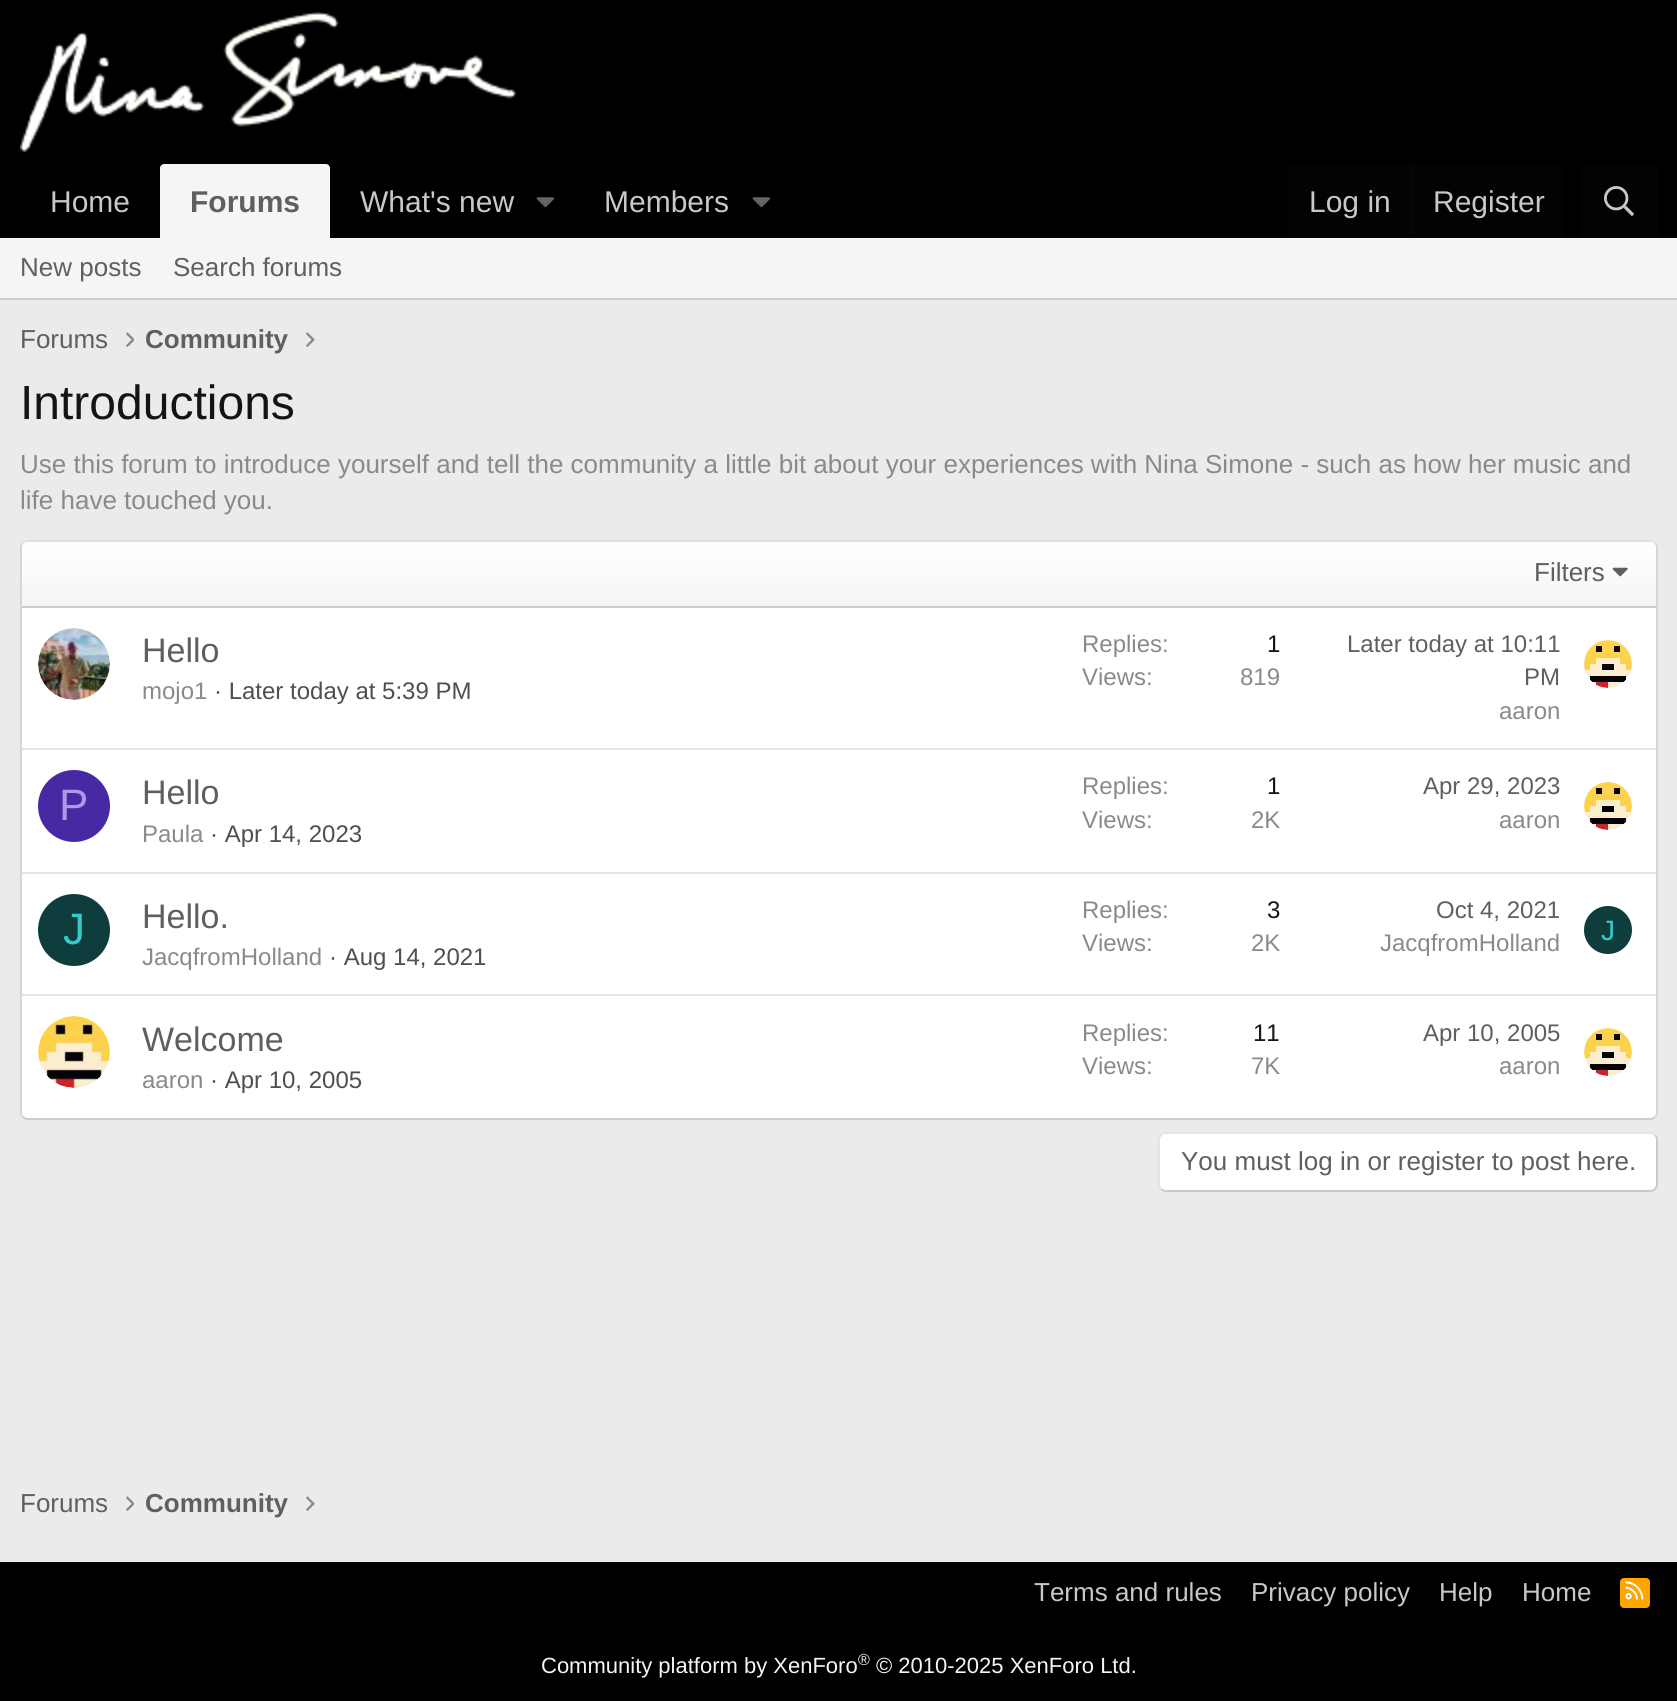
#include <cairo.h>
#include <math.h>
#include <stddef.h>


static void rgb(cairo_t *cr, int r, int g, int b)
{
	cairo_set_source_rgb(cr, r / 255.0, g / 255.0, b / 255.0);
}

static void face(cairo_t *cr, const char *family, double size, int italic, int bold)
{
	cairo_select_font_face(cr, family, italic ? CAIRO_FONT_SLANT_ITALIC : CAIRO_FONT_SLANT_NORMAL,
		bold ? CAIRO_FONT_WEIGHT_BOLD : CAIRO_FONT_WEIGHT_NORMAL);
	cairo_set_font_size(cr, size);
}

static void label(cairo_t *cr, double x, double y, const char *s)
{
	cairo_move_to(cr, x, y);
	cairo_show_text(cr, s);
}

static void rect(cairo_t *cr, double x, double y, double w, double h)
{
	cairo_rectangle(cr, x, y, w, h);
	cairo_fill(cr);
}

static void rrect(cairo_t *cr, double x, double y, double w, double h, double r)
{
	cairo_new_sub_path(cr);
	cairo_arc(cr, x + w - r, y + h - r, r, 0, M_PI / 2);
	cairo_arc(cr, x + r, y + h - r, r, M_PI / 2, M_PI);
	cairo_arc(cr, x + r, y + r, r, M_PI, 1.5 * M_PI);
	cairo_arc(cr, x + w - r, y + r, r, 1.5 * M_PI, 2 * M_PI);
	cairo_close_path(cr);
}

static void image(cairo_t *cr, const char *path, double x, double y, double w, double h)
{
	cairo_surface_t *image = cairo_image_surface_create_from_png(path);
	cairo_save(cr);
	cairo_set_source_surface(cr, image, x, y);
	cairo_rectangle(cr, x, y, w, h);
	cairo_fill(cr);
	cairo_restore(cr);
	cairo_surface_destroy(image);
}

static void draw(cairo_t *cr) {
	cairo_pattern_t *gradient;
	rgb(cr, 235, 235, 235);
	cairo_paint(cr);
	rgb(cr, 0, 0, 0);
	rect(cr, 0, 0, 1677, 238);
	image(cr, "image0.png", 20, 12, 496, 140);
	face(cr, "Liberation Sans", 30, 0, 0);
	rgb(cr, 200, 200, 200);
	label(cr, 50, 212, "Home");
	rgb(cr, 245, 245, 245);
	cairo_new_path(cr);
	cairo_move_to(cr, 164, 164);
	cairo_line_to(cr, 326, 164);
	cairo_curve_to(cr, 328, 164, 330, 166, 330, 168);
	cairo_line_to(cr, 330, 238);
	cairo_line_to(cr, 160, 238);
	cairo_line_to(cr, 160, 168);
	cairo_curve_to(cr, 160, 166, 162, 164, 164, 164);
	cairo_close_path(cr);
	cairo_fill(cr);
	face(cr, "Liberation Sans", 30, 0, 1);
	rgb(cr, 95, 95, 95);
	label(cr, 190, 212, "Forums");
	face(cr, "Liberation Sans", 30, 0, 0);
	rgb(cr, 200, 200, 200);
	label(cr, 360, 212, "What's new");
	image(cr, "image1.png", 536, 197, 18, 11);
	label(cr, 604, 212, "Members");
	image(cr, "image1.png", 752, 197, 18, 11);
	rgb(cr, 3, 3, 3);
	cairo_new_path(cr);
	cairo_move_to(cr, 1296, 164);
	cairo_line_to(cr, 1556, 164);
	cairo_curve_to(cr, 1560.5, 164, 1564, 167.5, 1564, 172);
	cairo_line_to(cr, 1564, 238);
	cairo_line_to(cr, 1288, 238);
	cairo_line_to(cr, 1288, 172);
	cairo_curve_to(cr, 1288, 167.5, 1291.5, 164, 1296, 164);
	cairo_close_path(cr);
	cairo_fill(cr);
	rgb(cr, 200, 200, 200);
	label(cr, 1309, 212, "Log in");
	rgb(cr, 6, 6, 6);
	rect(cr, 1410, 164, 2, 74);
	rgb(cr, 200, 200, 200);
	label(cr, 1433, 212, "Register");
	rgb(cr, 3, 3, 3);
	cairo_new_path(cr);
	cairo_move_to(cr, 1588, 164);
	cairo_line_to(cr, 1650, 164);
	cairo_curve_to(cr, 1654.5, 164, 1658, 167.5, 1658, 172);
	cairo_line_to(cr, 1658, 238);
	cairo_line_to(cr, 1580, 238);
	cairo_line_to(cr, 1580, 172);
	cairo_curve_to(cr, 1580, 167.5, 1583.5, 164, 1588, 164);
	cairo_close_path(cr);
	cairo_fill(cr);
	image(cr, "image2.png", 1604, 186, 30, 30);
	rgb(cr, 245, 245, 245);
	rect(cr, 0, 238, 1677, 60);
	rgb(cr, 204, 204, 204);
	rect(cr, 0, 298, 1677, 2);
	face(cr, "Liberation Sans", 26, 0, 0);
	rgb(cr, 95, 95, 95);
	label(cr, 20, 276, "New posts");
	label(cr, 173, 276, "Search forums");
	label(cr, 20, 348, "Forums");
	image(cr, "image3.png", 126, 332, 8, 15);
	face(cr, "Liberation Sans", 26, 0, 1);
	label(cr, 145, 348, "Community");
	image(cr, "image4.png", 306, 332, 9, 15);
	face(cr, "Liberation Sans", 48, 0, 0);
	rgb(cr, 20, 20, 20);
	label(cr, 20, 419, "Introductions");
	face(cr, "Liberation Sans", 26, 0, 0);
	rgb(cr, 138, 138, 138);
	label(cr, 20, 473, "Use this forum to introduce yourself and tell the community a little bit about your experiences with Nina Simone - such as how her music and");
	label(cr, 20, 509, "life have touched you.");
	rgb(cr, 255, 255, 255);
	rrect(cr, 20, 540, 1638, 580, 8);
	cairo_fill(cr);
	cairo_new_path(cr);
	cairo_move_to(cr, 23, 543);
	cairo_curve_to(cr, 24.5, 541.5, 26, 541, 28, 541);
	cairo_line_to(cr, 1650, 541);
	cairo_curve_to(cr, 1652, 541, 1653.5, 541.5, 1655, 543);
	rgb(cr, 224, 224, 224);
	cairo_stroke(cr);
	cairo_new_path(cr);
	cairo_move_to(cr, 1655, 543);
	cairo_curve_to(cr, 1656.5, 544.5, 1657, 546, 1657, 548);
	cairo_line_to(cr, 1657, 1112);
	cairo_curve_to(cr, 1657, 1114, 1656.5, 1115.5, 1655, 1117);
	rgb(cr, 214, 214, 214);
	cairo_stroke(cr);
	cairo_new_path(cr);
	cairo_move_to(cr, 1655, 1117);
	cairo_curve_to(cr, 1653.5, 1118.5, 1652, 1119, 1650, 1119);
	cairo_line_to(cr, 28, 1119);
	cairo_curve_to(cr, 26, 1119, 24.5, 1118.5, 23, 1117);
	rgb(cr, 204, 204, 204);
	cairo_stroke(cr);
	cairo_new_path(cr);
	cairo_move_to(cr, 23, 1117);
	cairo_curve_to(cr, 21.5, 1115.5, 21, 1114, 21, 1112);
	cairo_line_to(cr, 21, 548);
	cairo_curve_to(cr, 21, 546, 21.5, 544.5, 23, 543);
	rgb(cr, 214, 214, 214);
	cairo_stroke(cr);
	gradient = cairo_pattern_create_linear(839, 606, 839, 542);
	cairo_pattern_add_color_stop_rgba(gradient, 0, 0.961, 0.961, 0.961, 1);
	cairo_pattern_add_color_stop_rgba(gradient, 1, 1, 1, 1, 1);
	cairo_set_source(cr, gradient);
	cairo_pattern_destroy(gradient);
	cairo_new_path(cr);
	cairo_move_to(cr, 28, 542);
	cairo_line_to(cr, 1650, 542);
	cairo_curve_to(cr, 1653.5, 542, 1656, 544.5, 1656, 548);
	cairo_line_to(cr, 1656, 606);
	cairo_line_to(cr, 22, 606);
	cairo_line_to(cr, 22, 548);
	cairo_curve_to(cr, 22, 544.5, 24.5, 542, 28, 542);
	cairo_close_path(cr);
	cairo_fill(cr);
	rgb(cr, 204, 204, 204);
	rect(cr, 22, 606, 1634, 2);
	rgb(cr, 95, 95, 95);
	label(cr, 1534, 581, "Filters");
	image(cr, "image5.png", 1612, 567, 16, 10);
	image(cr, "image6.png", 38, 628, 72, 72);
	face(cr, "Liberation Sans", 34, 0, 0);
	label(cr, 142, 662, "Hello");
	face(cr, "Liberation Sans", 24, 0, 0);
	rgb(cr, 138, 138, 138);
	label(cr, 142, 699, "mojo1");
	rgb(cr, 79, 79, 79);
	label(cr, 214, 699, "· Later today at 5:39 PM");
	rgb(cr, 138, 138, 138);
	label(cr, 1082, 652, "Replies:");
	rgb(cr, 20, 20, 20);
	label(cr, 1267, 652, "1");
	rgb(cr, 138, 138, 138);
	label(cr, 1082, 685, "Views:");
	label(cr, 1240, 685, "819");
	rgb(cr, 95, 95, 95);
	label(cr, 1347, 652, "Later today at 10:11");
	label(cr, 1524, 685, "PM");
	rgb(cr, 138, 138, 138);
	label(cr, 1499, 719, "aaron");
	image(cr, "image7.png", 1584, 640, 48, 48);
	rgb(cr, 229, 229, 229);
	rect(cr, 22, 748, 1634, 2);
	rgb(cr, 71, 41, 163);
	cairo_arc(cr, 74, 806, 36, 0, 2 * M_PI);
	cairo_fill(cr);
	face(cr, "Liberation Sans", 44, 0, 0);
	rgb(cr, 172, 153, 230);
	label(cr, 59, 820, "P");
	face(cr, "Liberation Sans", 34, 0, 0);
	rgb(cr, 95, 95, 95);
	label(cr, 142, 804, "Hello");
	face(cr, "Liberation Sans", 24, 0, 0);
	rgb(cr, 138, 138, 138);
	label(cr, 142, 842, "Paula");
	rgb(cr, 79, 79, 79);
	label(cr, 210, 842, "· Apr 14, 2023");
	rgb(cr, 138, 138, 138);
	label(cr, 1082, 794, "Replies:");
	rgb(cr, 20, 20, 20);
	label(cr, 1267, 794, "1");
	rgb(cr, 138, 138, 138);
	label(cr, 1082, 828, "Views:");
	label(cr, 1251, 828, "2K");
	rgb(cr, 95, 95, 95);
	label(cr, 1423, 794, "Apr 29, 2023");
	rgb(cr, 138, 138, 138);
	label(cr, 1499, 828, "aaron");
	image(cr, "image7.png", 1584, 782, 48, 48);
	rgb(cr, 229, 229, 229);
	rect(cr, 22, 872, 1634, 2);
	rgb(cr, 15, 61, 61);
	cairo_arc(cr, 74, 930, 36, 0, 2 * M_PI);
	cairo_fill(cr);
	face(cr, "Liberation Sans", 44, 0, 0);
	rgb(cr, 51, 204, 204);
	label(cr, 63, 944, "J");
	face(cr, "Liberation Sans", 34, 0, 0);
	rgb(cr, 95, 95, 95);
	label(cr, 142, 928, "Hello.");
	face(cr, "Liberation Sans", 24, 0, 0);
	rgb(cr, 138, 138, 138);
	label(cr, 142, 965, "JacqfromHolland");
	rgb(cr, 79, 79, 79);
	label(cr, 329, 965, "· Aug 14, 2021");
	rgb(cr, 138, 138, 138);
	label(cr, 1082, 918, "Replies:");
	rgb(cr, 20, 20, 20);
	label(cr, 1267, 918, "3");
	rgb(cr, 138, 138, 138);
	label(cr, 1082, 951, "Views:");
	label(cr, 1251, 951, "2K");
	rgb(cr, 95, 95, 95);
	label(cr, 1436, 918, "Oct 4, 2021");
	rgb(cr, 138, 138, 138);
	label(cr, 1380, 951, "JacqfromHolland");
	rgb(cr, 15, 61, 61);
	cairo_new_path(cr);
	cairo_arc(cr, 1608, 930, 24, 0, 2 * M_PI);
	cairo_fill(cr);
	face(cr, "Liberation Sans", 28, 0, 0);
	rgb(cr, 51, 204, 204);
	label(cr, 1601, 940, "J");
	rgb(cr, 229, 229, 229);
	rect(cr, 22, 994, 1634, 2);
	image(cr, "image8.png", 38, 1016, 72, 72);
	face(cr, "Liberation Sans", 34, 0, 0);
	rgb(cr, 95, 95, 95);
	label(cr, 142, 1051, "Welcome");
	face(cr, "Liberation Sans", 24, 0, 0);
	rgb(cr, 138, 138, 138);
	label(cr, 142, 1088, "aaron");
	rgb(cr, 79, 79, 79);
	label(cr, 210, 1088, "· Apr 10, 2005");
	rgb(cr, 138, 138, 138);
	label(cr, 1082, 1041, "Replies:");
	rgb(cr, 20, 20, 20);
	label(cr, 1253, 1041, "11");
	rgb(cr, 138, 138, 138);
	label(cr, 1082, 1074, "Views:");
	label(cr, 1251, 1074, "7K");
	rgb(cr, 95, 95, 95);
	label(cr, 1423, 1041, "Apr 10, 2005");
	rgb(cr, 138, 138, 138);
	label(cr, 1499, 1074, "aaron");
	image(cr, "image7.png", 1584, 1028, 48, 48);
	rgb(cr, 255, 255, 255);
	rrect(cr, 1158, 1132, 500, 60, 8);
	cairo_fill(cr);
	cairo_new_path(cr);
	cairo_move_to(cr, 1655, 1135);
	cairo_curve_to(cr, 1656.5, 1136.5, 1657, 1138, 1657, 1140);
	cairo_line_to(cr, 1657, 1184);
	cairo_curve_to(cr, 1657, 1186, 1656.5, 1187.5, 1655, 1189);
	cairo_curve_to(cr, 1653.5, 1190.5, 1652, 1191, 1650, 1191);
	cairo_line_to(cr, 1166, 1191);
	cairo_curve_to(cr, 1164, 1191, 1162.5, 1190.5, 1161, 1189);
	rgb(cr, 201, 201, 201);
	cairo_stroke(cr);
	cairo_new_path(cr);
	cairo_move_to(cr, 1161, 1189);
	cairo_curve_to(cr, 1159.5, 1187.5, 1159, 1186, 1159, 1184);
	cairo_line_to(cr, 1159, 1140);
	cairo_curve_to(cr, 1159, 1138, 1159.5, 1136.5, 1161, 1135);
	cairo_curve_to(cr, 1162.5, 1133.5, 1164, 1133, 1166, 1133);
	cairo_line_to(cr, 1650, 1133);
	cairo_curve_to(cr, 1652, 1133, 1653.5, 1133.5, 1655, 1135);
	rgb(cr, 227, 227, 227);
	cairo_stroke(cr);
	face(cr, "Liberation Sans", 26, 0, 0);
	rgb(cr, 95, 95, 95);
	label(cr, 1181, 1170, "You must log in or register to post here.");
	label(cr, 20, 1512, "Forums");
	image(cr, "image3.png", 126, 1496, 8, 15);
	face(cr, "Liberation Sans", 26, 0, 1);
	label(cr, 145, 1512, "Community");
	image(cr, "image4.png", 306, 1496, 9, 15);
	rgb(cr, 0, 0, 0);
	rect(cr, 0, 1562, 1677, 139);
	face(cr, "Liberation Sans", 26, 0, 0);
	rgb(cr, 200, 200, 200);
	label(cr, 1034, 1601, "Terms and rules");
	label(cr, 1251, 1601, "Privacy policy");
	label(cr, 1439, 1601, "Help");
	label(cr, 1522, 1601, "Home");
	rgb(cr, 255, 165, 0);
	rrect(cr, 1620, 1578, 30, 30, 4);
	cairo_fill(cr);
	image(cr, "image9.png", 1625, 1581, 19, 19);
	face(cr, "Liberation Sans", 22, 0, 0);
	rgb(cr, 245, 245, 245);
	label(cr, 541, 1673, "Community platform by XenForo");
	face(cr, "Liberation Sans", 16, 0, 0);
	label(cr, 858, 1665, "®");
	face(cr, "Liberation Sans", 22, 0, 0);
	label(cr, 876, 1673, "© 2010-2025 XenForo Ltd.");
}

int main(void) {
	cairo_surface_t *surface = cairo_image_surface_create(CAIRO_FORMAT_RGB24, 1677, 1701);
	cairo_t *cr = cairo_create(surface);
	cairo_font_options_t *options = cairo_font_options_create();
	cairo_font_options_set_hint_metrics(options, CAIRO_HINT_METRICS_OFF);
	cairo_font_options_set_hint_style(options, CAIRO_HINT_STYLE_NONE);
	cairo_set_font_options(cr, options);
	cairo_set_miter_limit(cr, 4);
	draw(cr);
	cairo_surface_write_to_png(surface, "render.png");
	cairo_font_options_destroy(options);
	cairo_destroy(cr);
	cairo_surface_destroy(surface);
	return 0;
}
